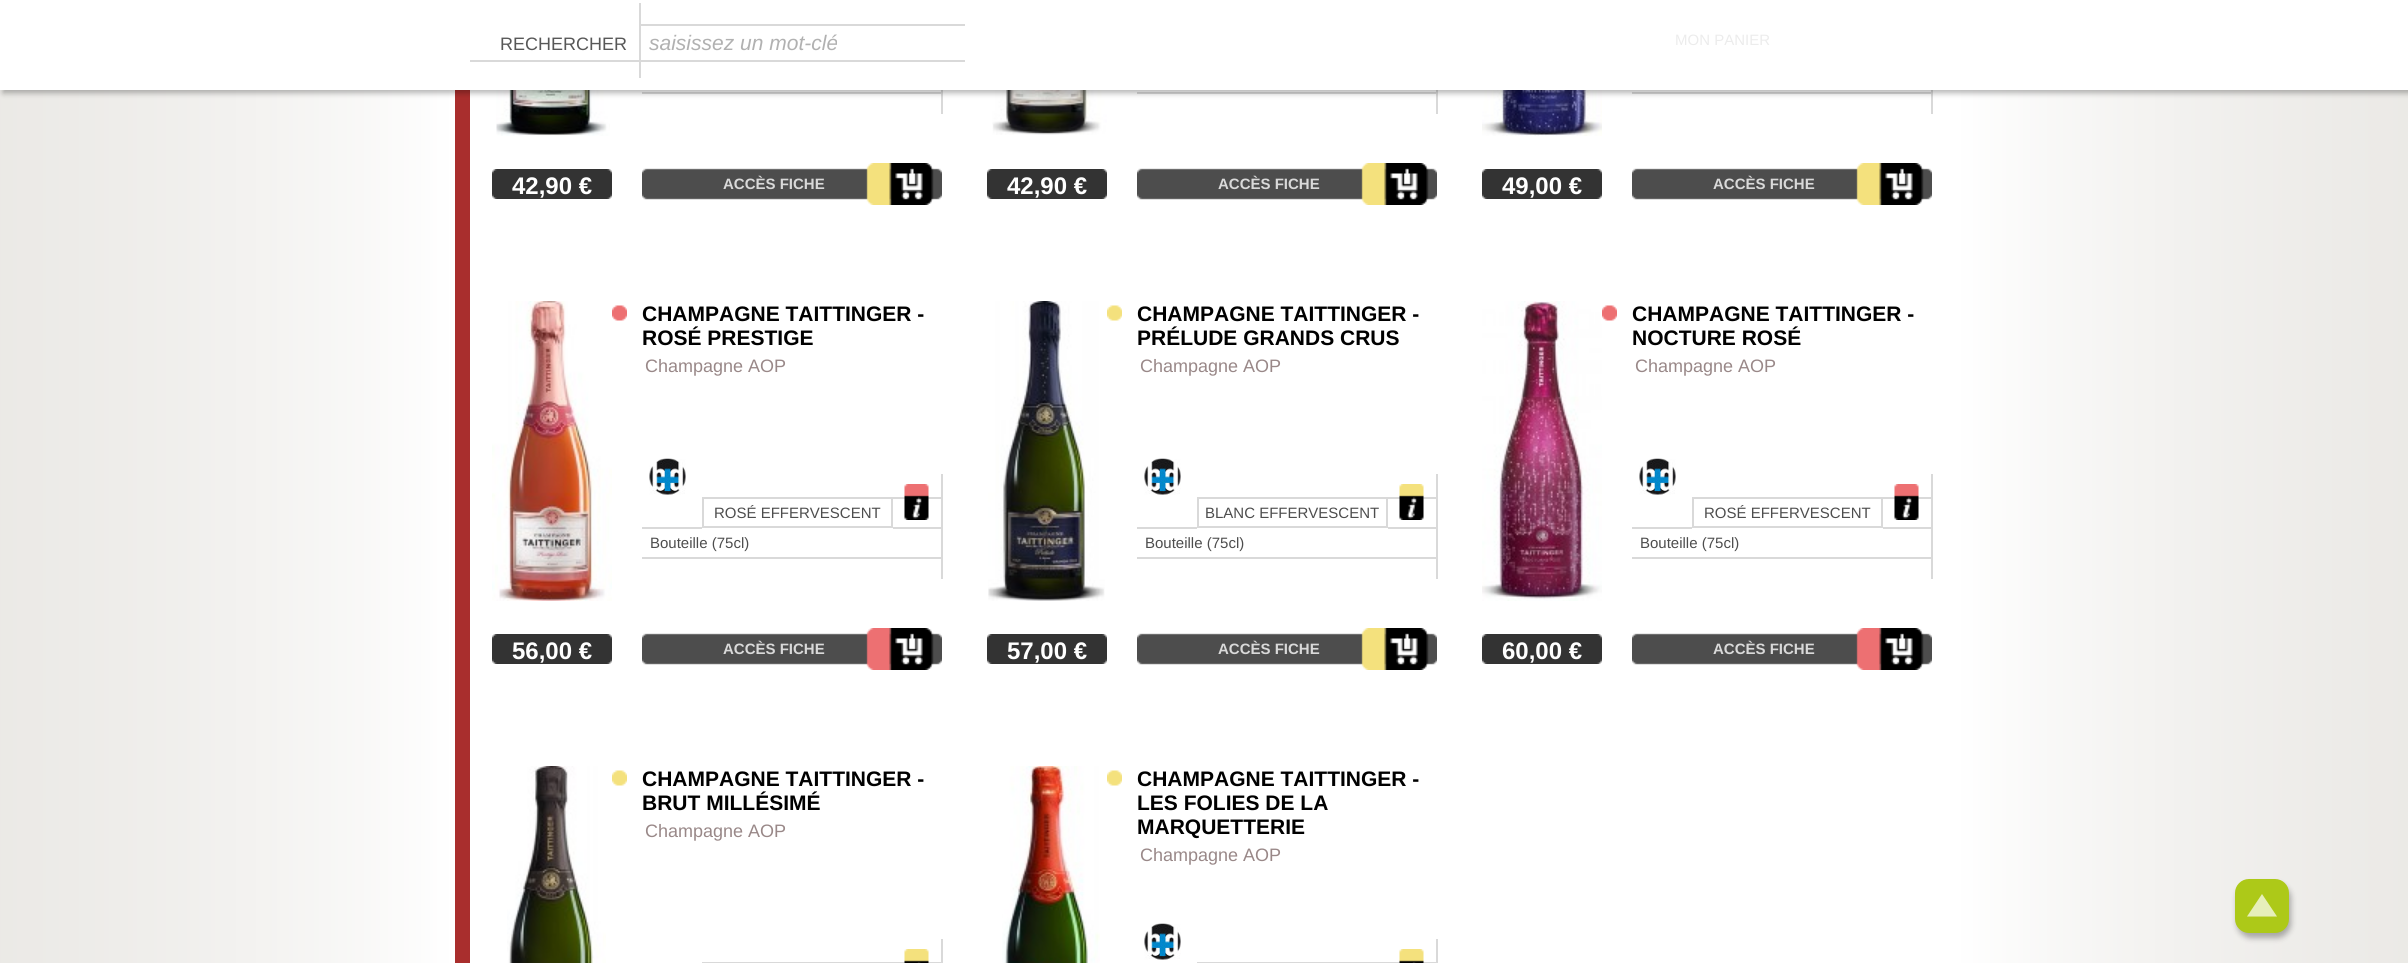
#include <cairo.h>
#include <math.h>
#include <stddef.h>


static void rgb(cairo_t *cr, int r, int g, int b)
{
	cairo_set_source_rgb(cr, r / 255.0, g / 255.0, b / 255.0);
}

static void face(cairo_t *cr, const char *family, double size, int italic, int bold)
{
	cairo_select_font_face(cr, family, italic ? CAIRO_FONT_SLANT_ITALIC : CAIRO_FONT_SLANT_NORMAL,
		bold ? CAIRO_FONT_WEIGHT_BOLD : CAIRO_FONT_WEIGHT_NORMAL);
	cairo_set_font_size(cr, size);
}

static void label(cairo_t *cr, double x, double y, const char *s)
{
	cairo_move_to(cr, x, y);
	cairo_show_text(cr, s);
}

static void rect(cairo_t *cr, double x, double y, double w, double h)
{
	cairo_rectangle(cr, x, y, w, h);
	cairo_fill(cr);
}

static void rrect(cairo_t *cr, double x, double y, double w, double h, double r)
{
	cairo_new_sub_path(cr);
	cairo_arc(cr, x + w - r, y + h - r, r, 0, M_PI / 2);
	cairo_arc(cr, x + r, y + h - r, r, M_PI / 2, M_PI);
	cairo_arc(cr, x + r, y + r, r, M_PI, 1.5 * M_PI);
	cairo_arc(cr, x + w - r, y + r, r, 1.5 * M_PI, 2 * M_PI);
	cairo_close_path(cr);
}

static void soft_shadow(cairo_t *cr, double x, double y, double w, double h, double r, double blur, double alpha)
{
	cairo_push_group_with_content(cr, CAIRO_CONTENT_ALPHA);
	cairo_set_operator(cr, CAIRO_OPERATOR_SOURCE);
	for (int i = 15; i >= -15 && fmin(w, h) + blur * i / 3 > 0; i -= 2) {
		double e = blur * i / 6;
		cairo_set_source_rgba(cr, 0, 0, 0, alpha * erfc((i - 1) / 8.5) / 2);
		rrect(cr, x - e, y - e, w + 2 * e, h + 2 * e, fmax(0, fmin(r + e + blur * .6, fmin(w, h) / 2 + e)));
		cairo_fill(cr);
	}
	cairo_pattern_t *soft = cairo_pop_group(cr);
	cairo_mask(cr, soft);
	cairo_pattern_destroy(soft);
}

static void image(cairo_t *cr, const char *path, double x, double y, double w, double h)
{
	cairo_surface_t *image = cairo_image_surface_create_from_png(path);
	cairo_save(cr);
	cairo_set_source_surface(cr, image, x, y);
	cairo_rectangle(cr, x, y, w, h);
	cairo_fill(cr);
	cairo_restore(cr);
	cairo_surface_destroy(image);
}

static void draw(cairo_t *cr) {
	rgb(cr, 255, 255, 255);
	cairo_paint(cr);
	image(cr, "image0.png", 0, 90, 2408, 873);
	rgb(cr, 169, 46, 45);
	rect(cr, 455, 90, 15, 873);
	image(cr, "image1.png", 496, 90, 114, 46);
	rgb(cr, 217, 217, 217);
	rect(cr, 941, 90, 2, 24);
	rect(cr, 642, 92, 300, 2);
	image(cr, "image4.png", 992, 90, 115, 45);
	rect(cr, 1436, 90, 2, 24);
	rect(cr, 1137, 92, 300, 2);
	image(cr, "image7.png", 1482, 90, 120, 46);
	rect(cr, 1931, 90, 2, 24);
	rect(cr, 1632, 92, 300, 2);
	rgb(cr, 0, 0, 0);
	soft_shadow(cr, 3, 3, 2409, 90, 0, 3, 0.3);
	rgb(cr, 255, 255, 255);
	rect(cr, 0, 0, 2408, 90);
	rgb(cr, 217, 217, 217);
	rect(cr, 639, 24, 326, 2);
	rect(cr, 470, 60, 495, 2);
	rect(cr, 639, 3, 2, 75);
	face(cr, "Liberation Sans", 18, 0, 0);
	rgb(cr, 87, 87, 87);
	label(cr, 500, 50, "RECHERCHER");
	face(cr, "Liberation Sans", 21, 1, 0);
	rgb(cr, 177, 177, 177);
	label(cr, 649, 50, "saisissez un mot-clé");
	face(cr, "Liberation Sans", 15, 0, 0);
	rgb(cr, 236, 236, 236);
	label(cr, 1675, 45, "MON PANIER");
	rgb(cr, 0, 0, 0);
	soft_shadow(cr, 2237, 884, 54, 54, 14, 3, 0.3);
	rgb(cr, 173, 201, 24);
	rrect(cr, 2235, 879, 54, 54, 14);
	cairo_fill(cr);
	rgb(cr, 230, 239, 186);
	cairo_new_path(cr);
	cairo_move_to(cr, 2277, 916.5);
	cairo_line_to(cr, 2247, 916.5);
	cairo_line_to(cr, 2262, 894);
	cairo_close_path(cr);
	cairo_fill(cr);
	image(cr, "image2.png", 492, 169, 120, 30);
	face(cr, "Liberation Sans", 24, 0, 1);
	rgb(cr, 255, 255, 255);
	label(cr, 512, 194, "42,90 €");
	image(cr, "image3.png", 642, 163, 300, 42);
	face(cr, "Liberation Sans", 15, 0, 1);
	rgb(cr, 217, 217, 217);
	label(cr, 723, 189, "ACCÈS FICHE");
	image(cr, "image5.png", 987, 169, 120, 30);
	face(cr, "Liberation Sans", 24, 0, 1);
	rgb(cr, 255, 255, 255);
	label(cr, 1007, 194, "42,90 €");
	image(cr, "image6.png", 1137, 163, 300, 42);
	face(cr, "Liberation Sans", 15, 0, 1);
	rgb(cr, 217, 217, 217);
	label(cr, 1218, 189, "ACCÈS FICHE");
	image(cr, "image2.png", 1482, 169, 120, 30);
	face(cr, "Liberation Sans", 24, 0, 1);
	rgb(cr, 255, 255, 255);
	label(cr, 1502, 194, "49,00 €");
	image(cr, "image3.png", 1632, 163, 300, 42);
	face(cr, "Liberation Sans", 15, 0, 1);
	rgb(cr, 217, 217, 217);
	label(cr, 1713, 189, "ACCÈS FICHE");
	image(cr, "image8.png", 612, 305, 15, 16);
	image(cr, "image9.png", 492, 301, 120, 300);
	image(cr, "image2.png", 492, 634, 120, 30);
	face(cr, "Liberation Sans", 24, 0, 1);
	rgb(cr, 255, 255, 255);
	label(cr, 512, 659, "56,00 €");
	face(cr, "Liberation Sans", 21, 0, 1);
	rgb(cr, 0, 0, 0);
	label(cr, 642, 321, "CHAMPAGNE TAITTINGER -");
	label(cr, 642, 345, "ROSÉ PRESTIGE");
	face(cr, "Liberation Sans", 18, 0, 0);
	rgb(cr, 153, 136, 136);
	label(cr, 645, 372, "Champagne AOP");
	image(cr, "image10.png", 649, 458, 37, 37);
	rgb(cr, 217, 217, 217);
	rect(cr, 893, 497, 48, 2);
	image(cr, "image11.png", 904, 484, 25, 36);
	rect(cr, 941, 474, 2, 105);
	cairo_rectangle(cr, 703, 498, 189, 29);
	cairo_stroke(cr);
	face(cr, "Liberation Sans", 15, 0, 0);
	rgb(cr, 77, 77, 77);
	label(cr, 714, 518, "ROSÉ EFFERVESCENT");
	rgb(cr, 217, 217, 217);
	rect(cr, 893, 527, 48, 2);
	rect(cr, 642, 527, 60, 2);
	rect(cr, 642, 557, 300, 2);
	rgb(cr, 77, 77, 77);
	label(cr, 650, 548, "Bouteille (75cl)");
	image(cr, "image12.png", 642, 628, 300, 42);
	face(cr, "Liberation Sans", 15, 0, 1);
	rgb(cr, 217, 217, 217);
	label(cr, 723, 654, "ACCÈS FICHE");
	image(cr, "image13.png", 1107, 305, 15, 16);
	image(cr, "image14.png", 988, 301, 117, 300);
	image(cr, "image5.png", 987, 634, 120, 30);
	face(cr, "Liberation Sans", 24, 0, 1);
	rgb(cr, 255, 255, 255);
	label(cr, 1007, 659, "57,00 €");
	face(cr, "Liberation Sans", 21, 0, 1);
	rgb(cr, 0, 0, 0);
	label(cr, 1137, 321, "CHAMPAGNE TAITTINGER -");
	label(cr, 1137, 345, "PRÉLUDE GRANDS CRUS");
	face(cr, "Liberation Sans", 18, 0, 0);
	rgb(cr, 153, 136, 136);
	label(cr, 1140, 372, "Champagne AOP");
	image(cr, "image10.png", 1144, 458, 37, 37);
	rgb(cr, 217, 217, 217);
	rect(cr, 1388, 497, 48, 2);
	image(cr, "image15.png", 1399, 484, 25, 36);
	rect(cr, 1436, 474, 2, 105);
	cairo_rectangle(cr, 1198, 498, 189, 29);
	cairo_stroke(cr);
	face(cr, "Liberation Sans", 15, 0, 0);
	rgb(cr, 77, 77, 77);
	label(cr, 1205, 518, "BLANC EFFERVESCENT");
	rgb(cr, 217, 217, 217);
	rect(cr, 1388, 527, 48, 2);
	rect(cr, 1137, 527, 60, 2);
	rect(cr, 1137, 557, 300, 2);
	rgb(cr, 77, 77, 77);
	label(cr, 1145, 548, "Bouteille (75cl)");
	image(cr, "image6.png", 1137, 628, 300, 42);
	face(cr, "Liberation Sans", 15, 0, 1);
	rgb(cr, 217, 217, 217);
	label(cr, 1218, 654, "ACCÈS FICHE");
	image(cr, "image8.png", 1602, 305, 15, 16);
	image(cr, "image16.png", 1482, 301, 120, 300);
	image(cr, "image2.png", 1482, 634, 120, 30);
	face(cr, "Liberation Sans", 24, 0, 1);
	rgb(cr, 255, 255, 255);
	label(cr, 1502, 659, "60,00 €");
	face(cr, "Liberation Sans", 21, 0, 1);
	rgb(cr, 0, 0, 0);
	label(cr, 1632, 321, "CHAMPAGNE TAITTINGER -");
	label(cr, 1632, 345, "NOCTURE ROSÉ");
	face(cr, "Liberation Sans", 18, 0, 0);
	rgb(cr, 153, 136, 136);
	label(cr, 1635, 372, "Champagne AOP");
	image(cr, "image10.png", 1639, 458, 37, 37);
	rgb(cr, 217, 217, 217);
	rect(cr, 1883, 497, 48, 2);
	image(cr, "image17.png", 1894, 484, 25, 36);
	rect(cr, 1931, 474, 2, 105);
	cairo_rectangle(cr, 1693, 498, 189, 29);
	cairo_stroke(cr);
	face(cr, "Liberation Sans", 15, 0, 0);
	rgb(cr, 77, 77, 77);
	label(cr, 1704, 518, "ROSÉ EFFERVESCENT");
	rgb(cr, 217, 217, 217);
	rect(cr, 1883, 527, 48, 2);
	rect(cr, 1632, 527, 60, 2);
	rect(cr, 1632, 557, 300, 2);
	rgb(cr, 77, 77, 77);
	label(cr, 1640, 548, "Bouteille (75cl)");
	image(cr, "image12.png", 1632, 628, 300, 42);
	face(cr, "Liberation Sans", 15, 0, 1);
	rgb(cr, 217, 217, 217);
	label(cr, 1713, 654, "ACCÈS FICHE");
	image(cr, "image18.png", 612, 770, 15, 16);
	image(cr, "image19.png", 507, 766, 99, 197);
	face(cr, "Liberation Sans", 21, 0, 1);
	rgb(cr, 0, 0, 0);
	label(cr, 642, 786, "CHAMPAGNE TAITTINGER -");
	label(cr, 642, 810, "BRUT MILLÉSIMÉ");
	face(cr, "Liberation Sans", 18, 0, 0);
	rgb(cr, 153, 136, 136);
	label(cr, 645, 837, "Champagne AOP");
	rgb(cr, 217, 217, 217);
	rect(cr, 893, 962, 48, 1);
	image(cr, "image20.png", 904, 949, 25, 14);
	rect(cr, 941, 939, 2, 24);
	cairo_rectangle(cr, 703, 963, 189, 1);
	cairo_stroke(cr);
	image(cr, "image13.png", 1107, 770, 15, 16);
	image(cr, "image21.png", 1002, 766, 98, 197);
	face(cr, "Liberation Sans", 21, 0, 1);
	rgb(cr, 0, 0, 0);
	label(cr, 1137, 786, "CHAMPAGNE TAITTINGER -");
	label(cr, 1137, 810, "LES FOLIES DE LA");
	label(cr, 1137, 834, "MARQUETTERIE");
	face(cr, "Liberation Sans", 18, 0, 0);
	rgb(cr, 153, 136, 136);
	label(cr, 1140, 861, "Champagne AOP");
	image(cr, "image22.png", 1144, 923, 37, 37);
	rgb(cr, 217, 217, 217);
	rect(cr, 1388, 962, 48, 1);
	image(cr, "image23.png", 1399, 949, 25, 14);
	rect(cr, 1436, 939, 2, 24);
	cairo_rectangle(cr, 1198, 963, 189, 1);
	cairo_stroke(cr);
}

int main(void) {
	cairo_surface_t *surface = cairo_image_surface_create(CAIRO_FORMAT_RGB24, 2408, 963);
	cairo_t *cr = cairo_create(surface);
	cairo_font_options_t *options = cairo_font_options_create();
	cairo_font_options_set_hint_metrics(options, CAIRO_HINT_METRICS_OFF);
	cairo_font_options_set_hint_style(options, CAIRO_HINT_STYLE_NONE);
	cairo_set_font_options(cr, options);
	cairo_set_miter_limit(cr, 4);
	draw(cr);
	cairo_surface_write_to_png(surface, "render.png");
	cairo_font_options_destroy(options);
	cairo_destroy(cr);
	cairo_surface_destroy(surface);
	return 0;
}
